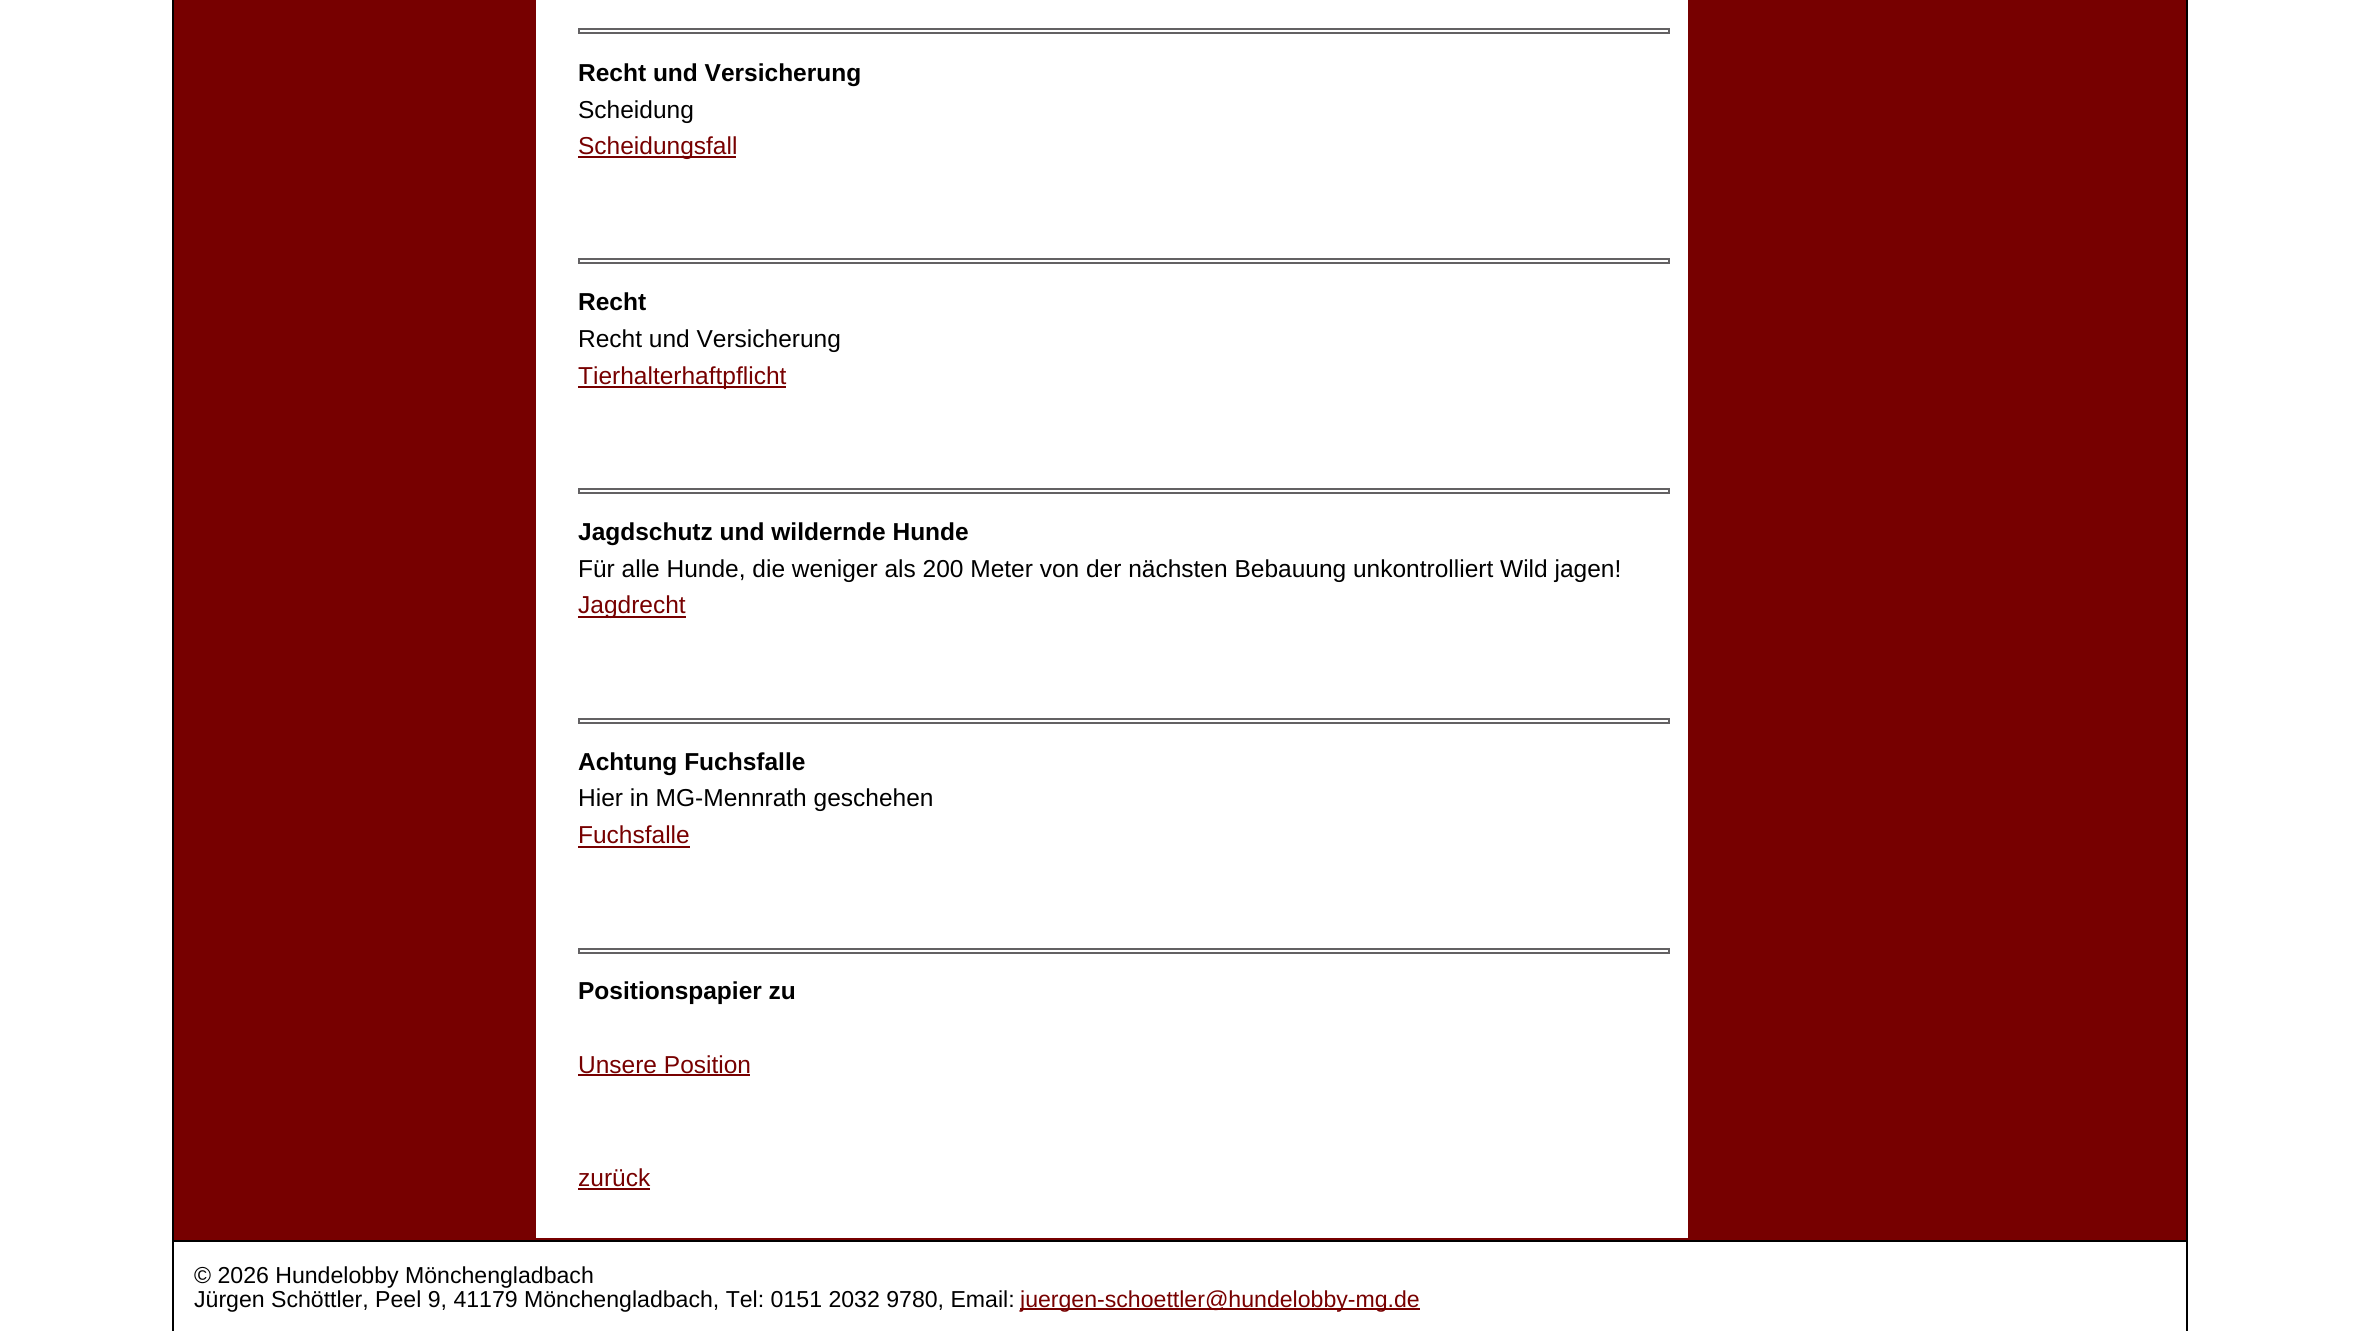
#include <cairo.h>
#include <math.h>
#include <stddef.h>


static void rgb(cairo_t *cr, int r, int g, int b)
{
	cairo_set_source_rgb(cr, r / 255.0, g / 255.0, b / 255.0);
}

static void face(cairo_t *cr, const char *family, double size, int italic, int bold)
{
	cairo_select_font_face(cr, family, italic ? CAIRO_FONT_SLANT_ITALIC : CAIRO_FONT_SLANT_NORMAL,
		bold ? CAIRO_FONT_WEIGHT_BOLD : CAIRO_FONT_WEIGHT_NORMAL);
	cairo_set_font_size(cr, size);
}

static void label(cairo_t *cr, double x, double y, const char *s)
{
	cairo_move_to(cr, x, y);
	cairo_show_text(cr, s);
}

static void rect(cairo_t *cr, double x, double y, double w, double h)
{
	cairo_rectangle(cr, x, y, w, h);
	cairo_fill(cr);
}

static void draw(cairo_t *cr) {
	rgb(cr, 255, 255, 255);
	cairo_paint(cr);
	rgb(cr, 119, 0, 0);
	rect(cr, 174, 0, 2012, 1240);
	cairo_rectangle(cr, 173, -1, 2014, 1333);
	rgb(cr, 0, 0, 0);
	cairo_stroke(cr);
	rgb(cr, 255, 255, 255);
	rect(cr, 536, 0, 1152, 1238);
	cairo_rectangle(cr, 579, 29, 1090, 4);
	rgb(cr, 99, 97, 99);
	cairo_stroke(cr);
	face(cr, "Liberation Sans", 24.5, 0, 1);
	rgb(cr, 0, 0, 0);
	label(cr, 578, 81, "Recht und Versicherung");
	face(cr, "Liberation Sans", 24.5, 0, 0);
	label(cr, 578, 118, "Scheidung");
	rgb(cr, 119, 0, 0);
	rect(cr, 578, 156, 158, 2);
	label(cr, 578, 154, "Scheidungsfall");
	cairo_rectangle(cr, 579, 259, 1090, 4);
	rgb(cr, 99, 97, 99);
	cairo_stroke(cr);
	face(cr, "Liberation Sans", 24.5, 0, 1);
	rgb(cr, 0, 0, 0);
	label(cr, 578, 310, "Recht");
	face(cr, "Liberation Sans", 24.5, 0, 0);
	label(cr, 578, 347, "Recht und Versicherung");
	rgb(cr, 119, 0, 0);
	rect(cr, 578, 386, 208, 2);
	label(cr, 578, 384, "Tierhalterhaftpflicht");
	cairo_rectangle(cr, 579, 489, 1090, 4);
	rgb(cr, 99, 97, 99);
	cairo_stroke(cr);
	face(cr, "Liberation Sans", 24.5, 0, 1);
	rgb(cr, 0, 0, 0);
	label(cr, 578, 540, "Jagdschutz und wildernde Hunde");
	face(cr, "Liberation Sans", 24.5, 0, 0);
	label(cr, 578, 577, "Für alle Hunde, die weniger als 200 Meter von der nächsten Bebauung unkontrolliert Wild jagen!");
	rgb(cr, 119, 0, 0);
	rect(cr, 578, 616, 108, 2);
	label(cr, 578, 613, "Jagdrecht");
	cairo_rectangle(cr, 579, 719, 1090, 4);
	rgb(cr, 99, 97, 99);
	cairo_stroke(cr);
	face(cr, "Liberation Sans", 24.5, 0, 1);
	rgb(cr, 0, 0, 0);
	label(cr, 578, 770, "Achtung Fuchsfalle");
	face(cr, "Liberation Sans", 24.5, 0, 0);
	label(cr, 578, 806, "Hier in MG-Mennrath geschehen");
	rgb(cr, 119, 0, 0);
	label(cr, 578, 843, "Fuchsfalle");
	rect(cr, 578, 846, 112, 2);
	cairo_rectangle(cr, 579, 949, 1090, 4);
	rgb(cr, 99, 97, 99);
	cairo_stroke(cr);
	face(cr, "Liberation Sans", 24.5, 0, 1);
	rgb(cr, 0, 0, 0);
	label(cr, 578, 999, "Positionspapier zu");
	face(cr, "Liberation Sans", 24.5, 0, 0);
	rgb(cr, 119, 0, 0);
	label(cr, 578, 1073, "Unsere Position");
	rect(cr, 578, 1074, 172, 2);
	label(cr, 578, 1186, "zurück");
	rect(cr, 578, 1188, 72, 2);
	rgb(cr, 0, 0, 0);
	rect(cr, 174, 1240, 2012, 2);
	face(cr, "Liberation Sans", 23.1, 0, 0);
	label(cr, 194, 1283, "© 2026 Hundelobby Mönchengladbach");
	label(cr, 194, 1307, "Jürgen Schöttler, Peel 9, 41179 Mönchengladbach, Tel: 0151 2032 9780, Email:");
	rgb(cr, 119, 0, 0);
	rect(cr, 1020, 1308, 400, 2);
	label(cr, 1020, 1307, "juergen-schoettler@hundelobby-mg.de");
}

int main(void) {
	cairo_surface_t *surface = cairo_image_surface_create(CAIRO_FORMAT_RGB24, 2360, 1331);
	cairo_t *cr = cairo_create(surface);
	cairo_font_options_t *options = cairo_font_options_create();
	cairo_font_options_set_hint_metrics(options, CAIRO_HINT_METRICS_OFF);
	cairo_font_options_set_hint_style(options, CAIRO_HINT_STYLE_NONE);
	cairo_set_font_options(cr, options);
	cairo_set_miter_limit(cr, 4);
	draw(cr);
	cairo_surface_write_to_png(surface, "render.png");
	cairo_font_options_destroy(options);
	cairo_destroy(cr);
	cairo_surface_destroy(surface);
	return 0;
}
